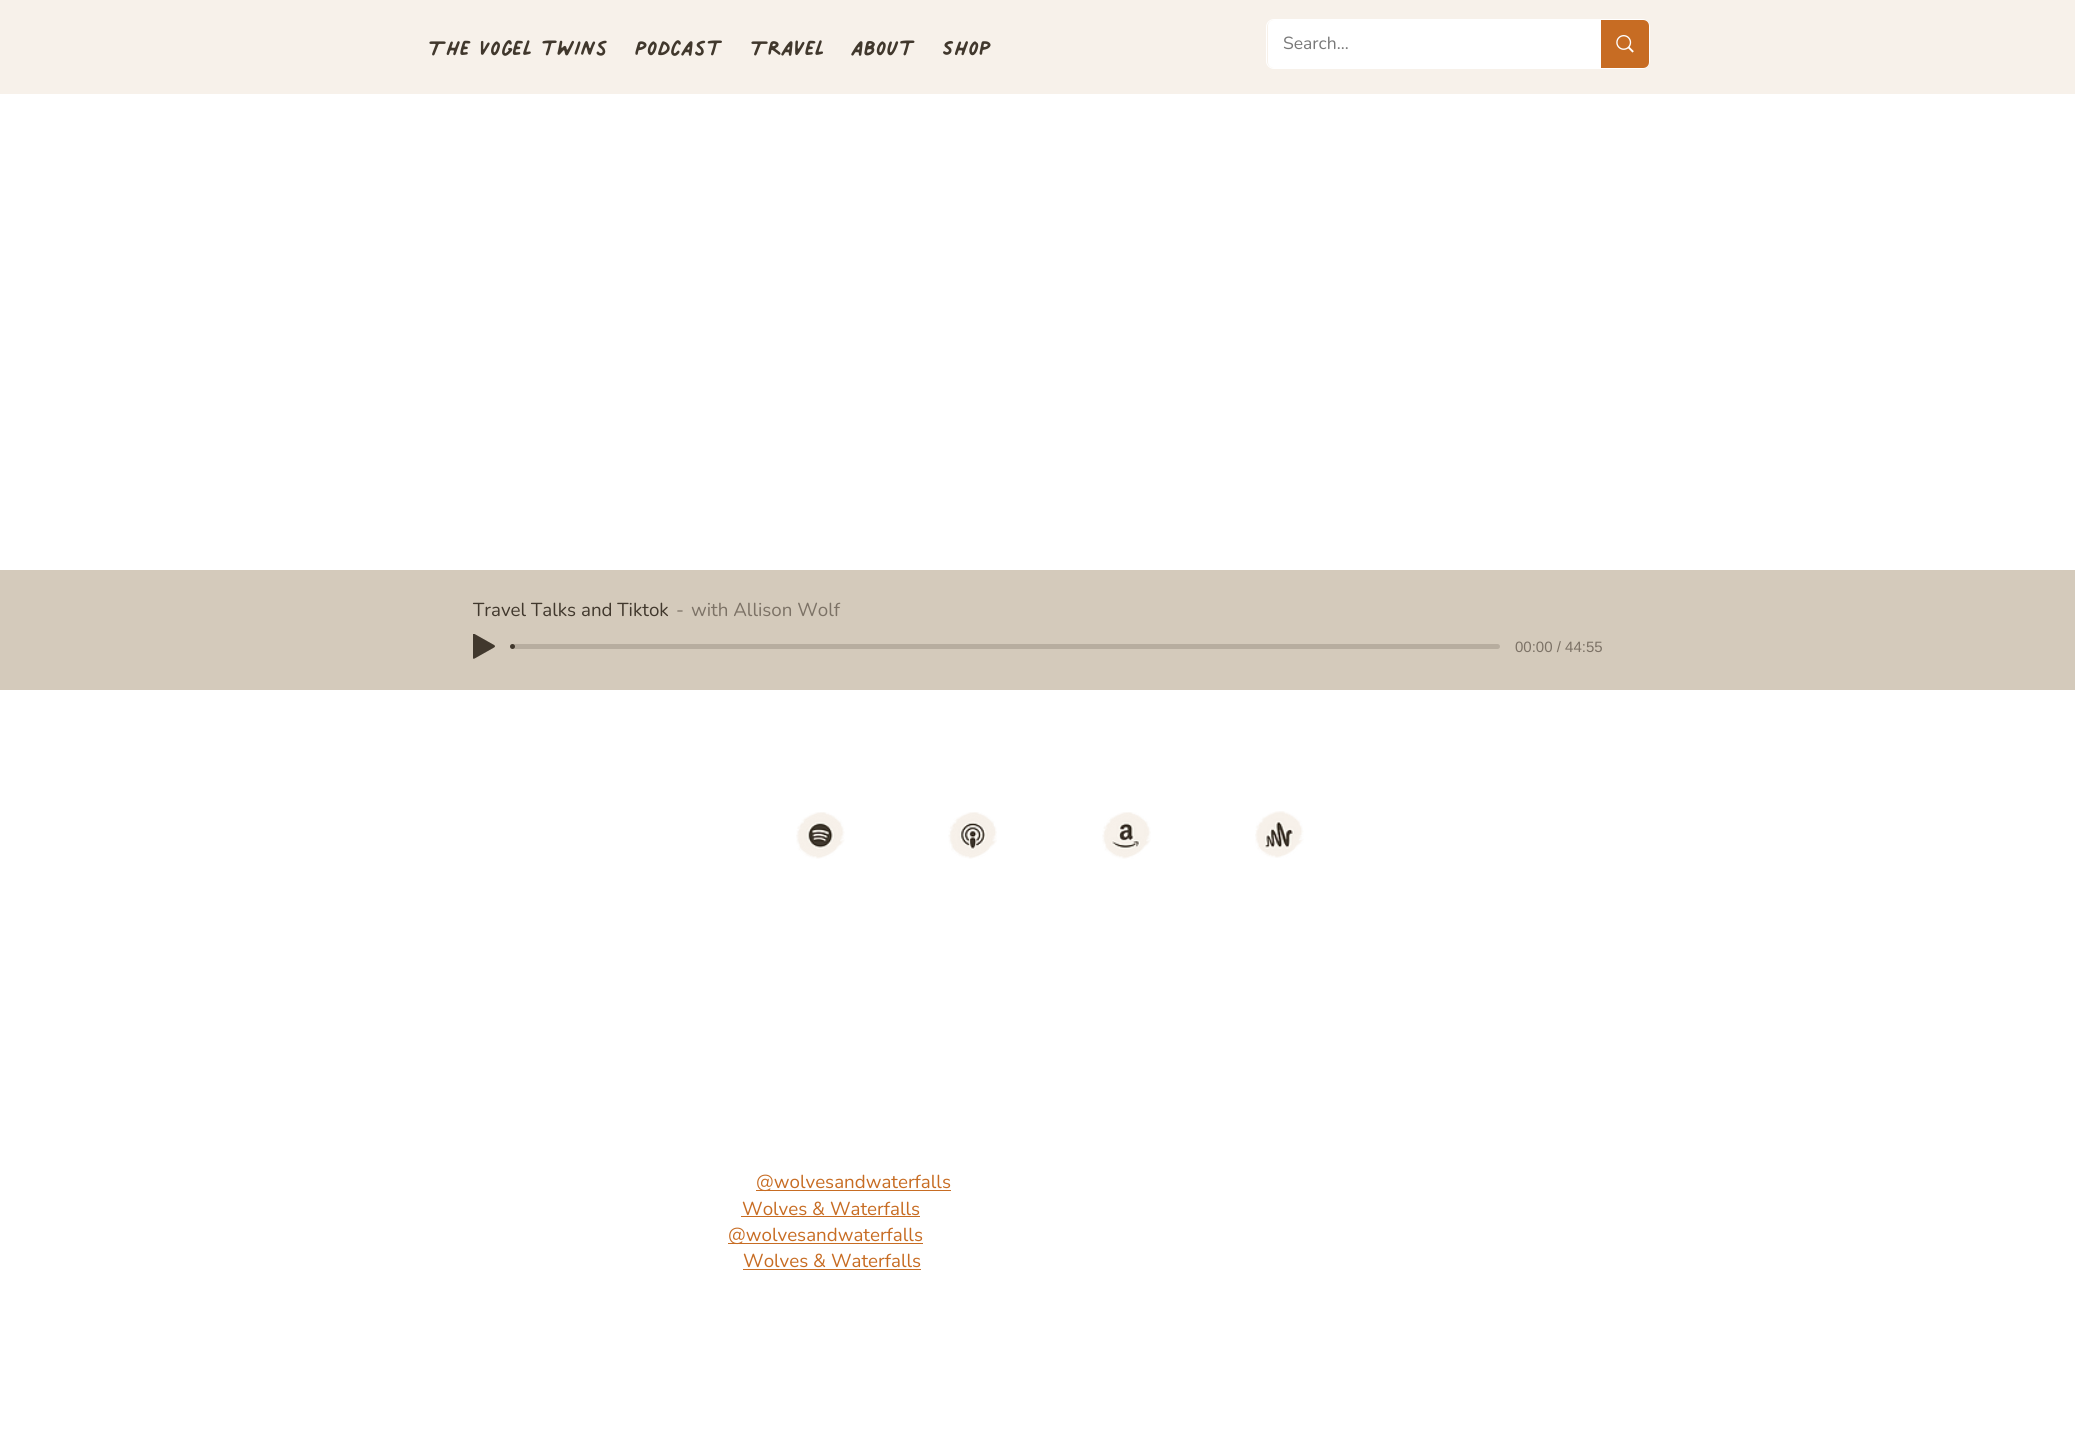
#include <cairo.h>
#include <math.h>
#include <stddef.h>


static void rgb(cairo_t *cr, int r, int g, int b)
{
	cairo_set_source_rgb(cr, r / 255.0, g / 255.0, b / 255.0);
}

static void face(cairo_t *cr, const char *family, double size, int italic, int bold)
{
	cairo_select_font_face(cr, family, italic ? CAIRO_FONT_SLANT_ITALIC : CAIRO_FONT_SLANT_NORMAL,
		bold ? CAIRO_FONT_WEIGHT_BOLD : CAIRO_FONT_WEIGHT_NORMAL);
	cairo_set_font_size(cr, size);
}

static void label(cairo_t *cr, double x, double y, const char *s)
{
	cairo_move_to(cr, x, y);
	cairo_show_text(cr, s);
}

static void rect(cairo_t *cr, double x, double y, double w, double h)
{
	cairo_rectangle(cr, x, y, w, h);
	cairo_fill(cr);
}

static void rrect(cairo_t *cr, double x, double y, double w, double h, double r)
{
	cairo_new_sub_path(cr);
	cairo_arc(cr, x + w - r, y + h - r, r, 0, M_PI / 2);
	cairo_arc(cr, x + r, y + h - r, r, M_PI / 2, M_PI);
	cairo_arc(cr, x + r, y + r, r, M_PI, 1.5 * M_PI);
	cairo_arc(cr, x + w - r, y + r, r, 1.5 * M_PI, 2 * M_PI);
	cairo_close_path(cr);
}

static void image(cairo_t *cr, const char *path, double x, double y, double w, double h)
{
	cairo_surface_t *image = cairo_image_surface_create_from_png(path);
	cairo_save(cr);
	cairo_set_source_surface(cr, image, x, y);
	cairo_rectangle(cr, x, y, w, h);
	cairo_fill(cr);
	cairo_restore(cr);
	cairo_surface_destroy(image);
}

static void draw(cairo_t *cr) {
	rgb(cr, 255, 255, 255);
	cairo_paint(cr);
	rgb(cr, 247, 241, 234);
	rect(cr, 0, 0, 2075, 94);
	face(cr, "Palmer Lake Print", 45, 0, 0);
	rgb(cr, 65, 56, 45);
	label(cr, 428, 56, "The Vogel twins");
	label(cr, 635, 56, "Podcast");
	label(cr, 750, 56, "Travel");
	label(cr, 851, 56, "about");
	label(cr, 942, 56, "Shop");
	rrect(cr, 1266.5, 19.5, 383, 49, 7.5);
	rgb(cr, 255, 255, 255);
	cairo_set_line_width(cr, 1);
	cairo_stroke(cr);
	rrect(cr, 1268, 20, 381, 48, 6);
	cairo_fill(cr);
	face(cr, "Nunito", 17.5, 0, 0);
	rgb(cr, 120, 120, 120);
	label(cr, 1283, 49, "Search...");
	rgb(cr, 199, 108, 35);
	cairo_new_path(cr);
	cairo_move_to(cr, 1600, 20);
	cairo_line_to(cr, 1643, 20);
	cairo_curve_to(cr, 1646.5, 20, 1649, 22.5, 1649, 26);
	cairo_line_to(cr, 1649, 62);
	cairo_curve_to(cr, 1649, 65.5, 1646.5, 68, 1643, 68);
	cairo_line_to(cr, 1600, 68);
	cairo_close_path(cr);
	cairo_fill(cr);
	rgb(cr, 255, 255, 255);
	rect(cr, 1600, 20, 1, 48);
	image(cr, "image0.png", 1616, 35, 18, 18);
	rgb(cr, 212, 202, 187);
	rect(cr, 0, 570, 2075, 120);
	face(cr, "Nunito", 18.75, 0, 0);
	rgb(cr, 65, 56, 45);
	label(cr, 473, 616, "Travel Talks and Tiktok");
	rgb(cr, 124, 114, 102);
	label(cr, 676, 616, "-");
	label(cr, 691, 616, "with Allison Wolf");
	image(cr, "image1.png", 473, 634, 22, 25);
	rgb(cr, 183, 173, 159);
	rrect(cr, 513, 644, 987, 5, 2.5);
	cairo_fill(cr);
	rgb(cr, 65, 56, 45);
	cairo_arc(cr, 512.5, 646.5, 2.5, 0, 2 * M_PI);
	cairo_fill(cr);
	face(cr, "Liberation Sans", 15, 0, 0);
	rgb(cr, 124, 114, 102);
	label(cr, 1515, 652, "00:00 / 44:55");
	image(cr, "image2.png", 796, 812, 49, 47);
	image(cr, "image3.png", 948, 812, 49, 47);
	image(cr, "image4.png", 1102, 812, 49, 47);
	image(cr, "image5.png", 1255, 811, 49, 47);
	rgb(cr, 199, 108, 35);
	rect(cr, 756, 1190, 195, 1);
	face(cr, "Nunito", 18.75, 0, 0);
	label(cr, 756, 1188, "@wolvesandwaterfalls");
	label(cr, 742, 1215, "Wolves & Waterfalls");
	rect(cr, 741, 1216, 179, 1);
	rect(cr, 728, 1243, 195, 1);
	label(cr, 728, 1241, "@wolvesandwaterfalls");
	label(cr, 743, 1267, "Wolves & Waterfalls");
	rect(cr, 743, 1269, 178, 1);
}

int main(void) {
	cairo_surface_t *surface = cairo_image_surface_create(CAIRO_FORMAT_RGB24, 2075, 1431);
	cairo_t *cr = cairo_create(surface);
	cairo_font_options_t *options = cairo_font_options_create();
	cairo_font_options_set_hint_metrics(options, CAIRO_HINT_METRICS_OFF);
	cairo_font_options_set_hint_style(options, CAIRO_HINT_STYLE_NONE);
	cairo_set_font_options(cr, options);
	cairo_set_miter_limit(cr, 4);
	draw(cr);
	cairo_surface_write_to_png(surface, "render.png");
	cairo_font_options_destroy(options);
	cairo_destroy(cr);
	cairo_surface_destroy(surface);
	return 0;
}
